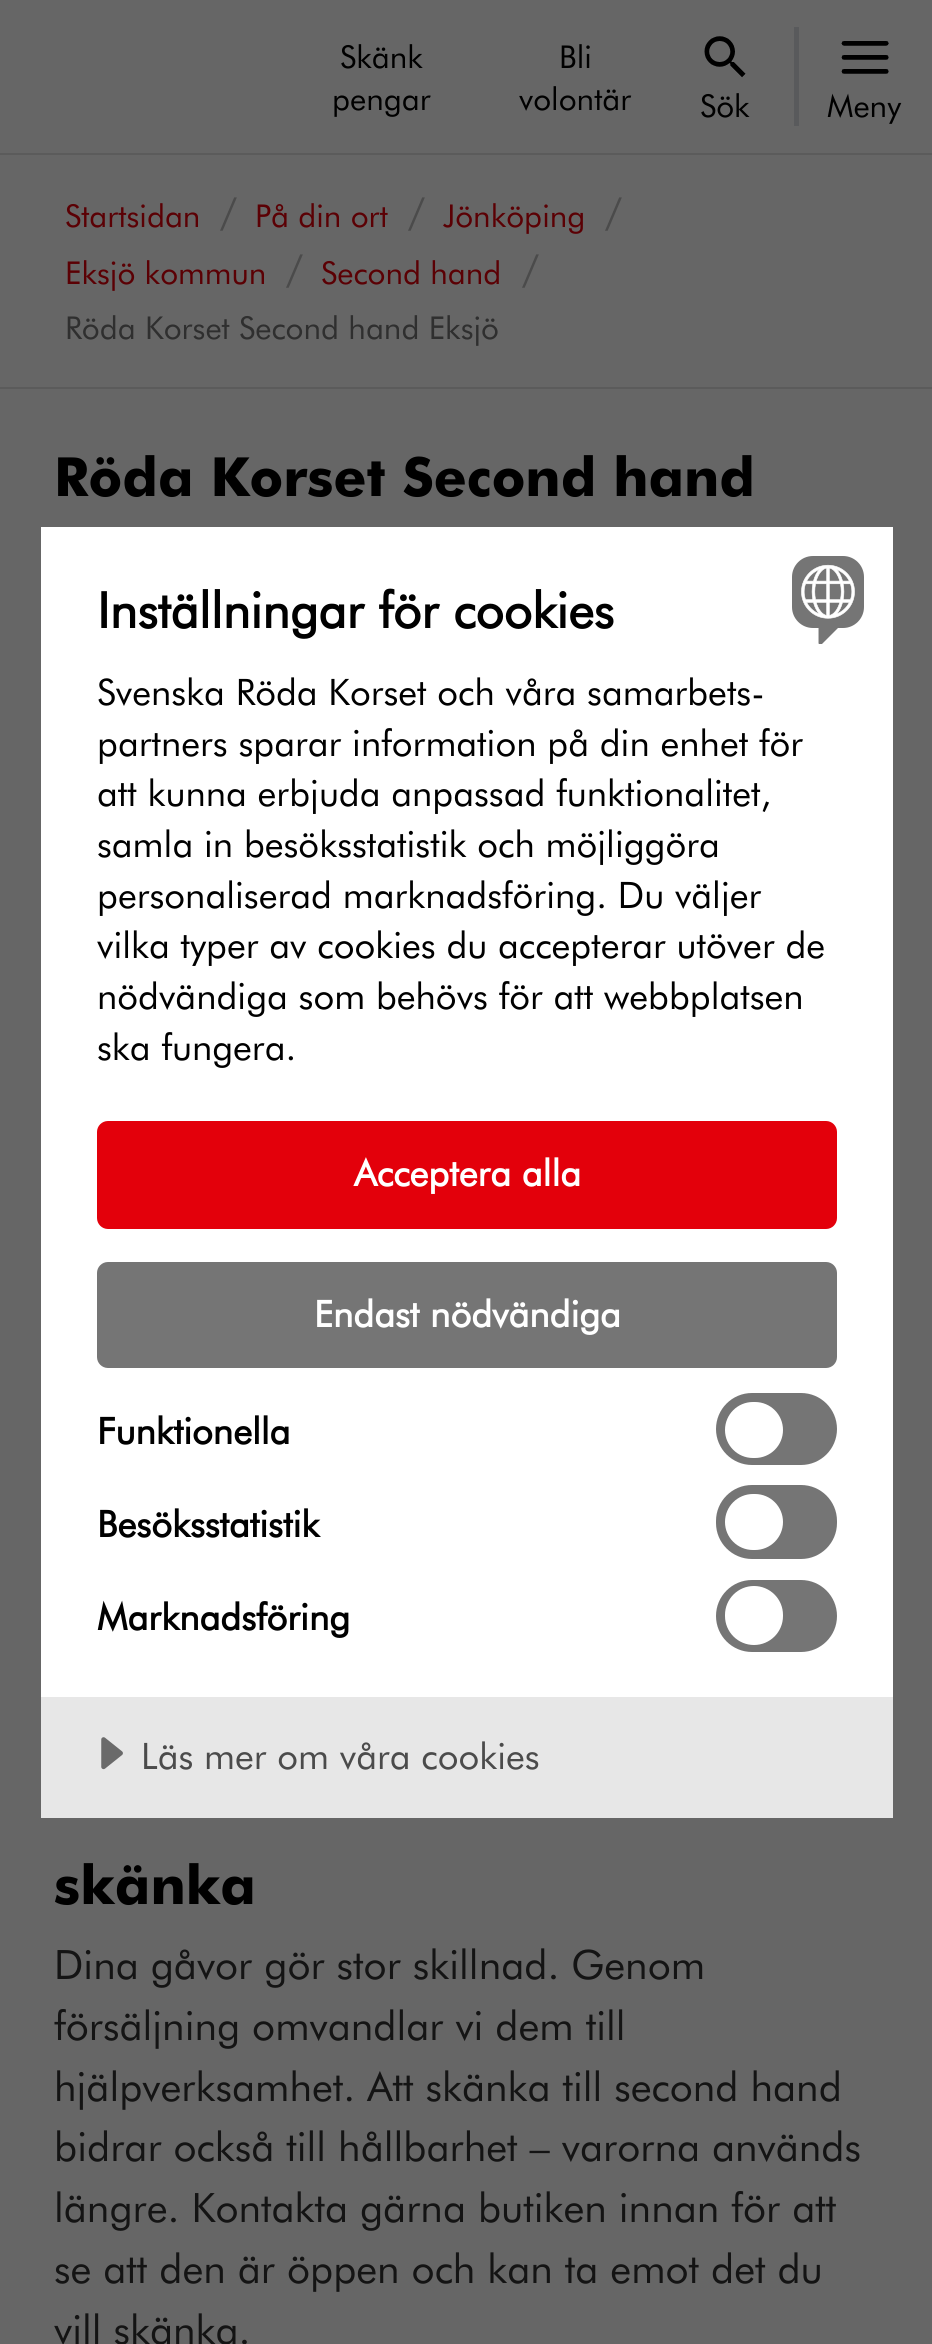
#include <cairo.h>
#include <math.h>
#include <stddef.h>


static void rgb(cairo_t *cr, int r, int g, int b)
{
	cairo_set_source_rgb(cr, r / 255.0, g / 255.0, b / 255.0);
}

static void face(cairo_t *cr, const char *family, double size, int italic, int bold)
{
	cairo_select_font_face(cr, family, italic ? CAIRO_FONT_SLANT_ITALIC : CAIRO_FONT_SLANT_NORMAL,
		bold ? CAIRO_FONT_WEIGHT_BOLD : CAIRO_FONT_WEIGHT_NORMAL);
	cairo_set_font_size(cr, size);
}

static void label(cairo_t *cr, double x, double y, const char *s)
{
	cairo_move_to(cr, x, y);
	cairo_show_text(cr, s);
}

static void rect(cairo_t *cr, double x, double y, double w, double h)
{
	cairo_rectangle(cr, x, y, w, h);
	cairo_fill(cr);
}

static void rrect(cairo_t *cr, double x, double y, double w, double h, double r)
{
	cairo_new_sub_path(cr);
	cairo_arc(cr, x + w - r, y + h - r, r, 0, M_PI / 2);
	cairo_arc(cr, x + r, y + h - r, r, M_PI / 2, M_PI);
	cairo_arc(cr, x + r, y + r, r, M_PI, 1.5 * M_PI);
	cairo_arc(cr, x + w - r, y + r, r, 1.5 * M_PI, 2 * M_PI);
	cairo_close_path(cr);
}

static void image(cairo_t *cr, const char *path, double x, double y, double w, double h)
{
	cairo_surface_t *image = cairo_image_surface_create_from_png(path);
	cairo_save(cr);
	cairo_set_source_surface(cr, image, x, y);
	cairo_rectangle(cr, x, y, w, h);
	cairo_fill(cr);
	cairo_restore(cr);
	cairo_surface_destroy(image);
}

static void draw(cairo_t *cr) {
	rgb(cr, 102, 102, 102);
	cairo_paint(cr);
	face(cr, "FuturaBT", 31.5, 0, 0);
	rgb(cr, 0, 0, 0);
	label(cr, 340, 68, "Skänk");
	label(cr, 332, 110, "pengar");
	label(cr, 559, 68, "Bli");
	label(cr, 519, 110, "volontär");
	image(cr, "image0.png", 704, 36, 42, 42);
	label(cr, 700, 117, "Sök");
	rgb(cr, 89, 90, 92);
	rect(cr, 794, 27, 5, 99);
	image(cr, "image1.png", 841, 41, 48, 33);
	rgb(cr, 0, 0, 0);
	label(cr, 827, 117, "Meny");
	rgb(cr, 91, 91, 91);
	rect(cr, 0, 153, 932, 2);
	rect(cr, 0, 387, 932, 2);
	rgb(cr, 91, 0, 4);
	label(cr, 65, 227, "Startsidan");
	face(cr, "FuturaBT", 40.5, 0, 0);
	rgb(cr, 75, 75, 75);
	label(cr, 220, 227, "/");
	face(cr, "FuturaBT", 31.5, 0, 0);
	rgb(cr, 91, 0, 4);
	label(cr, 255, 227, "På din ort");
	face(cr, "FuturaBT", 40.5, 0, 0);
	rgb(cr, 75, 75, 75);
	label(cr, 408, 227, "/");
	face(cr, "FuturaBT", 31.5, 0, 0);
	rgb(cr, 91, 0, 4);
	label(cr, 443, 227, "Jönköping");
	face(cr, "FuturaBT", 40.5, 0, 0);
	rgb(cr, 75, 75, 75);
	label(cr, 605, 227, "/");
	face(cr, "FuturaBT", 31.5, 0, 0);
	rgb(cr, 91, 0, 4);
	label(cr, 65, 284, "Eksjö kommun");
	face(cr, "FuturaBT", 40.5, 0, 0);
	rgb(cr, 75, 75, 75);
	label(cr, 286, 284, "/");
	face(cr, "FuturaBT", 31.5, 0, 0);
	rgb(cr, 91, 0, 4);
	label(cr, 321, 284, "Second hand");
	face(cr, "FuturaBT", 40.5, 0, 0);
	rgb(cr, 75, 75, 75);
	label(cr, 522, 284, "/");
	face(cr, "FuturaBT", 31.5, 0, 0);
	rgb(cr, 47, 47, 47);
	label(cr, 65, 339, "Röda Korset Second hand Eksjö");
	face(cr, "FuturaBT Black", 54, 0, 0);
	rgb(cr, 0, 0, 0);
	label(cr, 54, 496, "Röda Korset Second hand");
	label(cr, 54, 1904, "skänka");
	face(cr, "FuturaBT", 40.5, 0, 0);
	rgb(cr, 20, 20, 20);
	label(cr, 54, 1979, "Dina gåvor gör stor skillnad. Genom");
	label(cr, 54, 2040, "försäljning omvandlar vi dem till");
	label(cr, 54, 2101, "hjälpverksamhet. Att skänka till second hand");
	label(cr, 54, 2161, "bidrar också till hållbarhet – varorna används");
	label(cr, 54, 2222, "längre. Kontakta gärna butiken innan för att");
	label(cr, 54, 2283, "se att den är öppen och kan ta emot det du");
	label(cr, 54, 2344, "vill skänka.");
	rgb(cr, 255, 255, 255);
	rect(cr, 41, 527, 852, 1170);
	face(cr, "FuturaBT", 49.6, 0, 1);
	rgb(cr, 0, 0, 0);
	label(cr, 97, 628, "Inställningar för cookies");
	face(cr, "FuturaBT", 36.5, 0, 0);
	label(cr, 97, 705, "Svenska Röda Korset och våra samarbets-");
	label(cr, 97, 756, "partners sparar information på din enhet för");
	label(cr, 97, 806, "att kunna erbjuda anpassad funktionalitet,");
	label(cr, 97, 857, "samla in besöksstatistik och möjliggöra");
	label(cr, 97, 908, "personaliserad marknadsföring. Du väljer");
	label(cr, 97, 958, "vilka typer av cookies du accepterar utöver de");
	label(cr, 97, 1009, "nödvändiga som behövs för att webbplatsen");
	label(cr, 97, 1060, "ska fungera.");
	rgb(cr, 227, 0, 11);
	rrect(cr, 97, 1121, 740, 108, 11);
	cairo_fill(cr);
	face(cr, "FuturaBT", 36.5, 0, 1);
	rgb(cr, 255, 255, 255);
	label(cr, 354, 1186, "Acceptera alla");
	rgb(cr, 117, 117, 117);
	rrect(cr, 97, 1262, 740, 106, 11);
	cairo_fill(cr);
	rgb(cr, 255, 255, 255);
	label(cr, 314, 1327, "Endast nödvändiga");
	rgb(cr, 0, 0, 0);
	label(cr, 97, 1444, "Funktionella");
	rgb(cr, 117, 117, 117);
	rrect(cr, 716, 1393, 121, 72, 36);
	cairo_fill(cr);
	rgb(cr, 255, 255, 255);
	rrect(cr, 725, 1402, 58, 56, 28);
	cairo_fill(cr);
	rgb(cr, 0, 0, 0);
	label(cr, 97, 1537, "Besöksstatistik");
	rgb(cr, 117, 117, 117);
	rrect(cr, 716, 1485, 121, 74, 36);
	cairo_fill(cr);
	rgb(cr, 255, 255, 255);
	rrect(cr, 725, 1494, 58, 56, 28);
	cairo_fill(cr);
	rgb(cr, 0, 0, 0);
	label(cr, 97, 1630, "Marknadsföring");
	rgb(cr, 117, 117, 117);
	rrect(cr, 716, 1580, 121, 72, 36);
	cairo_fill(cr);
	rgb(cr, 255, 255, 255);
	rrect(cr, 725, 1586, 58, 59, 29);
	cairo_fill(cr);
	image(cr, "image2.png", 792, 556, 72, 88);
	rgb(cr, 231, 231, 231);
	rect(cr, 41, 1697, 852, 121);
	image(cr, "image3.png", 101, 1737, 22, 33);
	face(cr, "FuturaBT", 36.5, 0, 0);
	rgb(cr, 75, 75, 75);
	label(cr, 141, 1769, "Läs mer om våra cookies");
}

int main(void) {
	cairo_surface_t *surface = cairo_image_surface_create(CAIRO_FORMAT_RGB24, 932, 2344);
	cairo_t *cr = cairo_create(surface);
	cairo_font_options_t *options = cairo_font_options_create();
	cairo_font_options_set_hint_metrics(options, CAIRO_HINT_METRICS_OFF);
	cairo_font_options_set_hint_style(options, CAIRO_HINT_STYLE_NONE);
	cairo_set_font_options(cr, options);
	cairo_set_miter_limit(cr, 4);
	draw(cr);
	cairo_surface_write_to_png(surface, "render.png");
	cairo_font_options_destroy(options);
	cairo_destroy(cr);
	cairo_surface_destroy(surface);
	return 0;
}
